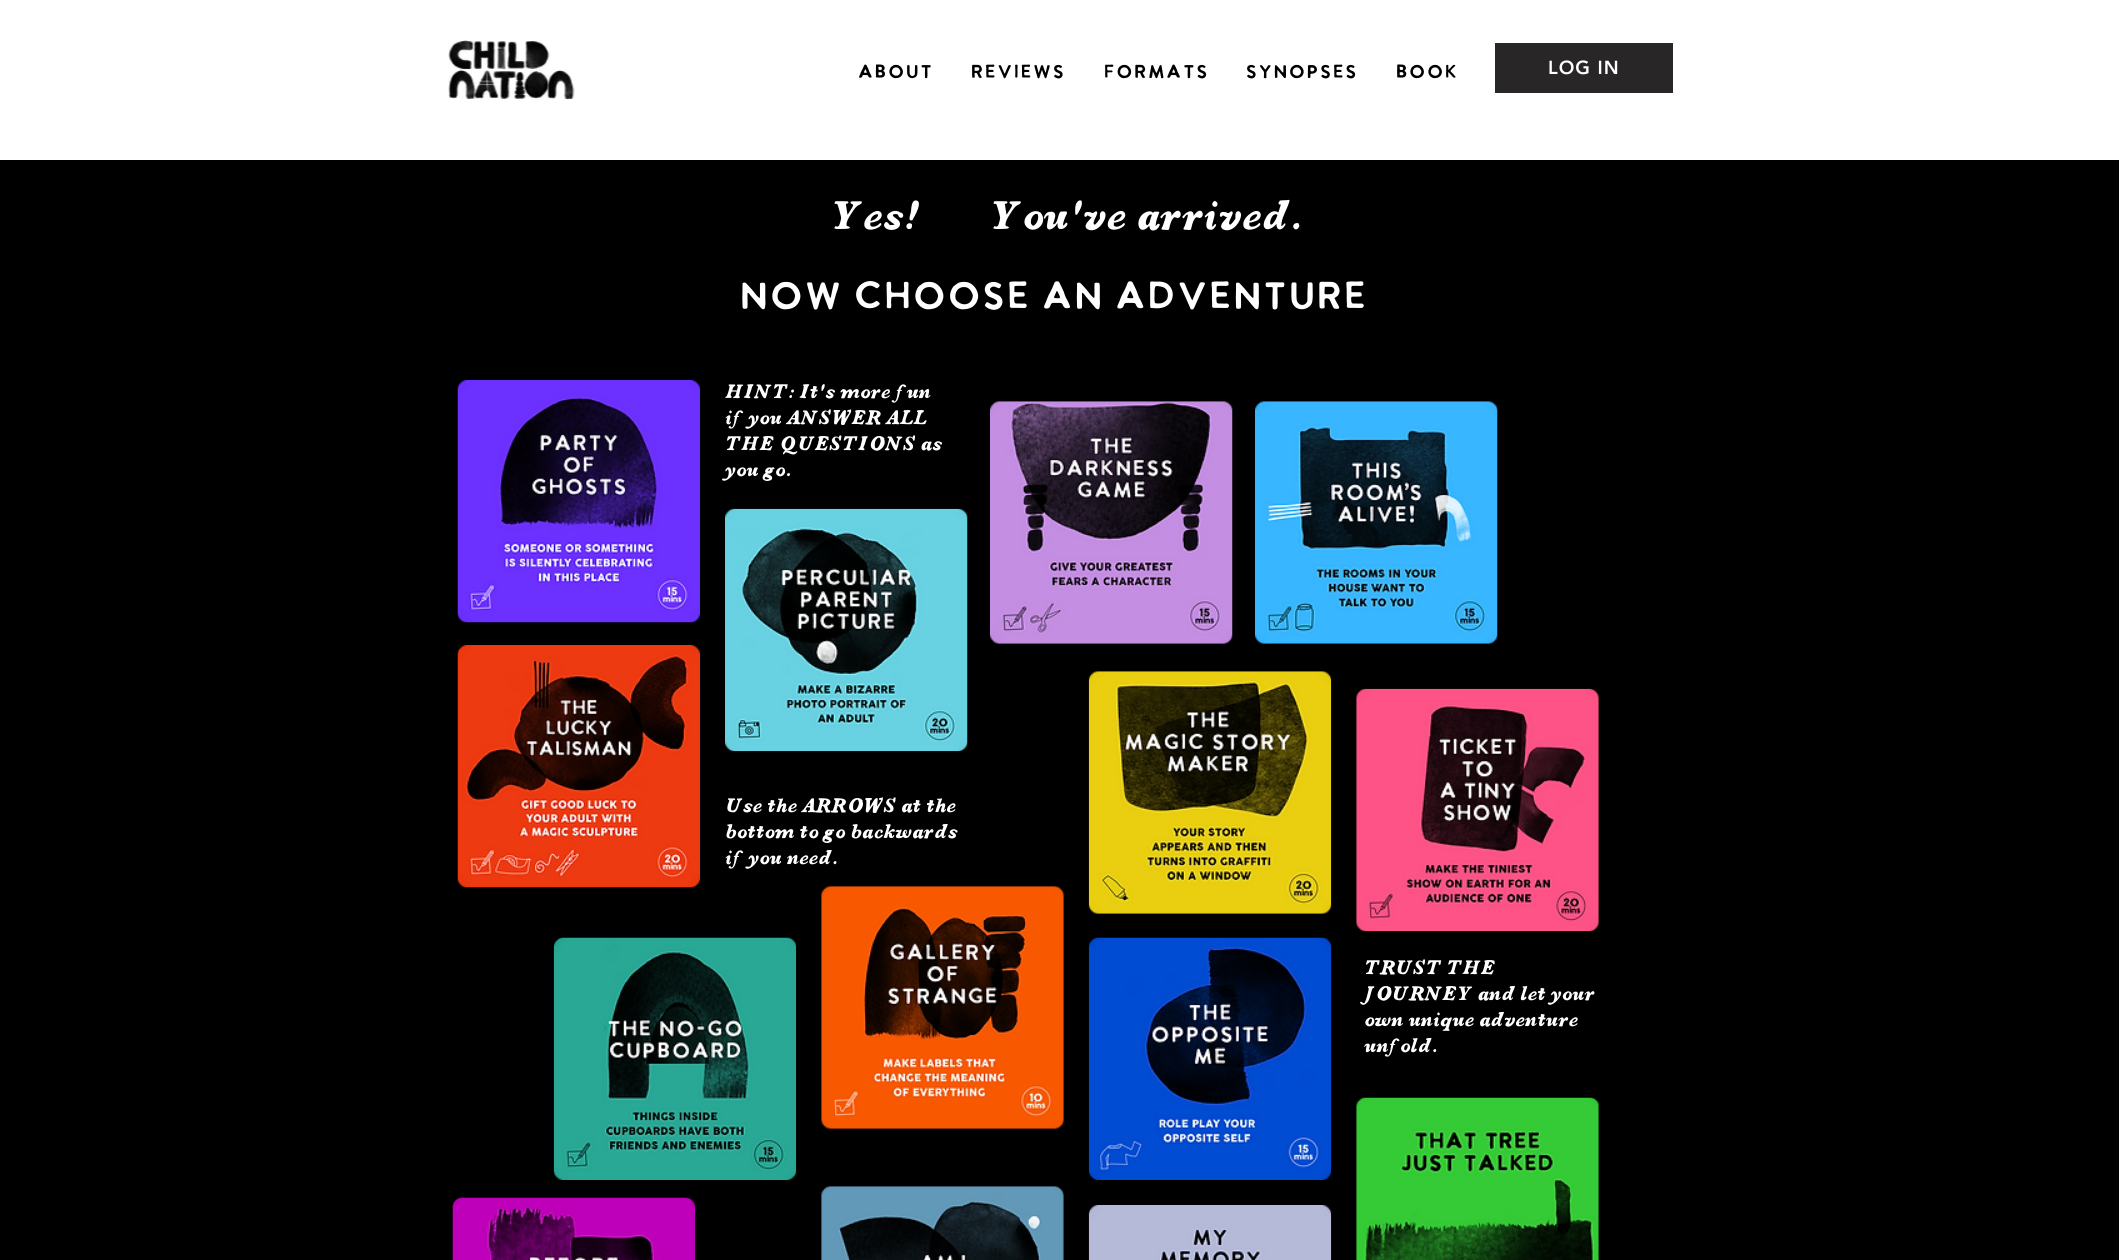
#include <cairo.h>
#include <math.h>
#include <stddef.h>


static void rgb(cairo_t *cr, int r, int g, int b)
{
	cairo_set_source_rgb(cr, r / 255.0, g / 255.0, b / 255.0);
}

static void face(cairo_t *cr, const char *family, double size, int italic, int bold)
{
	cairo_select_font_face(cr, family, italic ? CAIRO_FONT_SLANT_ITALIC : CAIRO_FONT_SLANT_NORMAL,
		bold ? CAIRO_FONT_WEIGHT_BOLD : CAIRO_FONT_WEIGHT_NORMAL);
	cairo_set_font_size(cr, size);
}

static void label(cairo_t *cr, double x, double y, const char *s)
{
	cairo_move_to(cr, x, y);
	cairo_show_text(cr, s);
}

static void tracked(cairo_t *cr, double x, double y, const char *s, double letter, double word)
{
	cairo_move_to(cr, x, y);
	while (*s) {
		char ch[5] = {0};
		int n = 0;
		do ch[n++] = *s++; while ((*s & 0xC0) == 0x80);
		cairo_show_text(cr, ch);
		cairo_rel_move_to(cr, letter + word * (*ch == ' '), 0);
	}
}

static void rect(cairo_t *cr, double x, double y, double w, double h)
{
	cairo_rectangle(cr, x, y, w, h);
	cairo_fill(cr);
}

static void image(cairo_t *cr, const char *path, double x, double y, double w, double h)
{
	cairo_surface_t *image = cairo_image_surface_create_from_png(path);
	cairo_save(cr);
	cairo_set_source_surface(cr, image, x, y);
	cairo_rectangle(cr, x, y, w, h);
	cairo_fill(cr);
	cairo_restore(cr);
	cairo_surface_destroy(image);
}

static void draw(cairo_t *cr) {
	rgb(cr, 0, 0, 0);
	cairo_paint(cr);
	rgb(cr, 255, 255, 255);
	rect(cr, 0, 0, 2119, 160);
	image(cr, "image0.png", 448, 40, 127, 61);
	face(cr, "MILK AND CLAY", 18.75, 0, 0);
	rgb(cr, 0, 0, 0);
	label(cr, 857, 78, "ABOUT");
	label(cr, 970, 78, "Reviews");
	label(cr, 1103, 78, "FORMATS");
	label(cr, 1245, 78, "SYNOPSES");
	label(cr, 1395, 78, "BOOK");
	rgb(cr, 40, 38, 38);
	rect(cr, 1495, 43, 178, 50);
	face(cr, "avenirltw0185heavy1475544 Black", 18.75, 0, 0);
	rgb(cr, 255, 255, 255);
	tracked(cr, 1548, 74, "LOG IN", 1, 0);
	face(cr, "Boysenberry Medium", 41.25, 0, 0);
	tracked(cr, 830, 229, "Yes!", -2, 0);
	tracked(cr, 989, 229, "You've arrived.", -2, 0);
	face(cr, "MILK AND CLAY", 38.75, 0, 0);
	tracked(cr, 738, 309, "NOw CHOOSE AN ADVENTURE", -1.9, 0);
	image(cr, "image1.png", 457, 380, 243, 243);
	face(cr, "Boysenberry Medium", 20, 0, 0);
	tracked(cr, 725, 398, "HINT: It's more fun", -1, 0);
	tracked(cr, 725, 424, "if you ANSWER ALL", -1, 0);
	tracked(cr, 725, 450, "THE QUESTIONS as", -1, 0);
	tracked(cr, 725, 476, "you go.", -1, 0);
	image(cr, "image2.png", 990, 401, 243, 243);
	image(cr, "image3.png", 1255, 401, 243, 243);
	image(cr, "image4.png", 457, 645, 243, 243);
	image(cr, "image5.png", 725, 508, 243, 244);
	image(cr, "image6.png", 1088, 671, 244, 243);
	image(cr, "image7.png", 1356, 688, 243, 244);
	tracked(cr, 725, 812, "Use the ARROWS at the", -1, 0);
	tracked(cr, 725, 838, "bottom to go backwards", -1, 0);
	tracked(cr, 725, 864, "if you need.", -1, 0);
	image(cr, "image8.png", 553, 937, 244, 243);
	image(cr, "image9.png", 1088, 937, 244, 243);
	tracked(cr, 1364, 974, "TRUST THE", -1, 0);
	tracked(cr, 1364, 1000, "JOURNEY and let your", -1, 0);
	tracked(cr, 1364, 1026, "own unique adventure", -1, 0);
	tracked(cr, 1364, 1052, "unfold.", -1, 0);
	image(cr, "image10.png", 452, 1197, 243, 63);
	image(cr, "image11.png", 821, 1186, 243, 74);
	image(cr, "image12.png", 1088, 1205, 244, 55);
	image(cr, "image13.png", 1356, 1097, 243, 163);
	image(cr, "image14.png", 821, 886, 243, 243);
}

int main(void) {
	cairo_surface_t *surface = cairo_image_surface_create(CAIRO_FORMAT_RGB24, 2119, 1260);
	cairo_t *cr = cairo_create(surface);
	cairo_font_options_t *options = cairo_font_options_create();
	cairo_font_options_set_hint_metrics(options, CAIRO_HINT_METRICS_OFF);
	cairo_font_options_set_hint_style(options, CAIRO_HINT_STYLE_NONE);
	cairo_set_font_options(cr, options);
	cairo_set_miter_limit(cr, 4);
	draw(cr);
	cairo_surface_write_to_png(surface, "render.png");
	cairo_font_options_destroy(options);
	cairo_destroy(cr);
	cairo_surface_destroy(surface);
	return 0;
}
